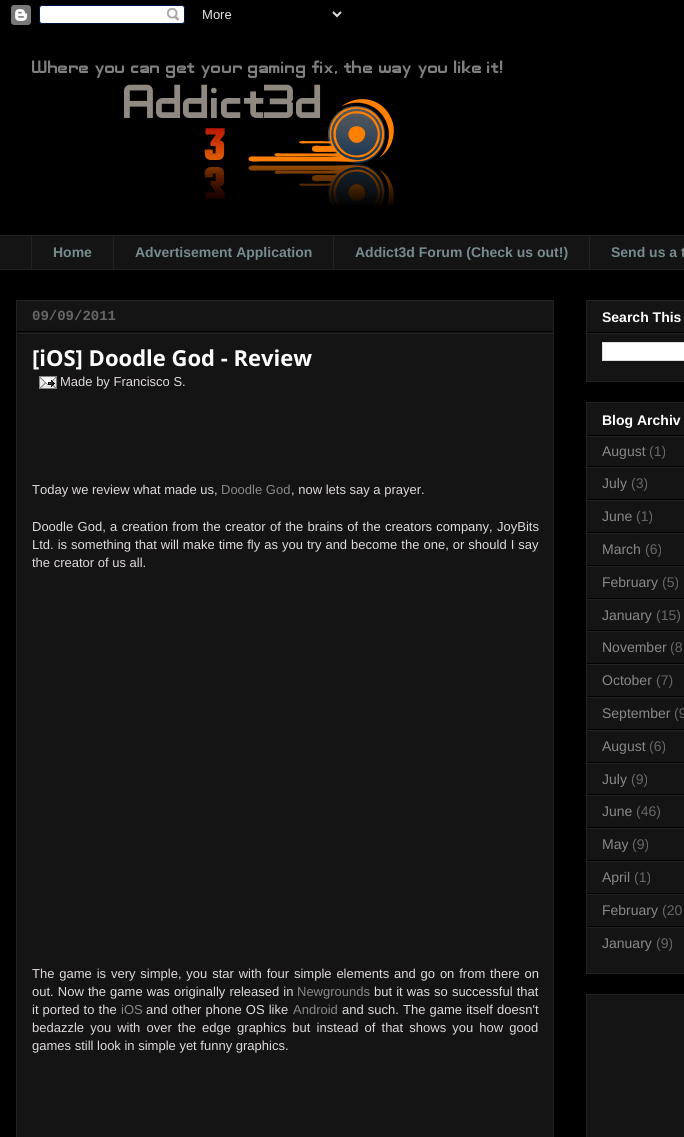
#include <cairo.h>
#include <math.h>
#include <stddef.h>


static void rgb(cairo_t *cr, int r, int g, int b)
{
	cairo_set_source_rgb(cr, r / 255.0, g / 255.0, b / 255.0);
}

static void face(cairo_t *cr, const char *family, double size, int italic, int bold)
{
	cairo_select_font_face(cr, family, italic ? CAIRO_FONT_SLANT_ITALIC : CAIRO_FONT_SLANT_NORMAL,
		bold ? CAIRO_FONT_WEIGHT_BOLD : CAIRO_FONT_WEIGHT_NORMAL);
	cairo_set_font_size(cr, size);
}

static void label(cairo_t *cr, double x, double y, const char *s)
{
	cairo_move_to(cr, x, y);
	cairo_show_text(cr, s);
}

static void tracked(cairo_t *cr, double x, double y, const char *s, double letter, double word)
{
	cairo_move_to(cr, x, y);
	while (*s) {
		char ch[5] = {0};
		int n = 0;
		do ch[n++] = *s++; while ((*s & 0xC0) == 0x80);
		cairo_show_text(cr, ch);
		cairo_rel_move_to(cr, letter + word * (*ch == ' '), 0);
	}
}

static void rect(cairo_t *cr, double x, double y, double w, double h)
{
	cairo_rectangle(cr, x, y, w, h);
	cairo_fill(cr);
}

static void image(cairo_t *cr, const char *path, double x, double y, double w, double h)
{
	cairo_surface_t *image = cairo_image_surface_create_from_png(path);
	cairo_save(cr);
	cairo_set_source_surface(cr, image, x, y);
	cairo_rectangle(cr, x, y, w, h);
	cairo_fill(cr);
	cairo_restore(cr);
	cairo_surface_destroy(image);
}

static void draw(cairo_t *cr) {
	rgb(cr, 0, 0, 0);
	cairo_paint(cr);
	image(cr, "image0.png", 11, 5, 331, 20);
	image(cr, "image1.png", 32, 60, 471, 146);
	rgb(cr, 20, 20, 20);
	rect(cr, 0, 236, 684, 33);
	rgb(cr, 34, 34, 34);
	rect(cr, 0, 235, 589, 1);
	rect(cr, 31, 235, 1, 35);
	face(cr, "Liberation Sans", 14, 0, 1);
	rgb(cr, 119, 138, 142);
	label(cr, 53, 257, "Home");
	rgb(cr, 34, 34, 34);
	rect(cr, 113, 235, 1, 35);
	rgb(cr, 119, 138, 142);
	label(cr, 135, 257, "Advertisement Application");
	rgb(cr, 34, 34, 34);
	rect(cr, 333, 235, 1, 35);
	rgb(cr, 119, 138, 142);
	label(cr, 355, 257, "Addict3d Forum (Check us out!)");
	cairo_rectangle(cr, 589.5, 235.5, 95, 34);
	rgb(cr, 34, 34, 34);
	cairo_set_line_width(cr, 1);
	cairo_stroke(cr);
	rgb(cr, 119, 138, 142);
	label(cr, 611, 257, "Send us a t");
	rgb(cr, 34, 34, 34);
	rect(cr, 0, 269, 589, 1);
	rgb(cr, 20, 20, 20);
	cairo_rectangle(cr, 16.5, 300.5, 537, 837);
	cairo_fill_preserve(cr);
	rgb(cr, 34, 34, 34);
	cairo_stroke(cr);
	rgb(cr, 0, 0, 0);
	rect(cr, 17, 331, 536, 1);
	face(cr, "Liberation Mono", 14, 0, 1);
	rgb(cr, 102, 102, 102);
	label(cr, 32, 320, "09/09/2011");
	rgb(cr, 34, 34, 34);
	rect(cr, 17, 333, 536, 1);
	face(cr, "Open Sans", 22, 0, 1);
	rgb(cr, 255, 255, 255);
	label(cr, 32, 366, "[iOS] Doodle God - Review");
	image(cr, "image2.png", 39, 376, 18, 13);
	face(cr, "Liberation Sans", 13, 0, 0);
	rgb(cr, 223, 217, 217);
	label(cr, 60, 386, "Made by Francisco S.");
	label(cr, 32, 494, "Today we review what made us,");
	rgb(cr, 136, 136, 136);
	label(cr, 221, 494, "Doodle God");
	rgb(cr, 223, 217, 217);
	label(cr, 291, 494, ", now lets say a prayer.");
	tracked(cr, 32, 531, "Doodle God, a creation from the creator of the brains of the creators company, JoyBits", 0, 0.75);
	tracked(cr, 32, 549, "Ltd. is something that will make time fly as you try and become the one, or should I say", 0, 0.4);
	label(cr, 32, 567, "the creator of us all.");
	tracked(cr, 32, 978, "The game is very simple, you star with four simple elements and go on from there on", 0, 1.25);
	tracked(cr, 32, 996, "out. Now the game was originally released in", 0, 0.5);
	rgb(cr, 136, 136, 136);
	label(cr, 297, 996, "Newgrounds");
	rgb(cr, 223, 217, 217);
	tracked(cr, 374, 996, "but it was so successful that", 0, 0.5);
	tracked(cr, 32, 1014, "it ported to the", 0, 0.5);
	rgb(cr, 136, 136, 136);
	label(cr, 121, 1014, "iOS");
	rgb(cr, 223, 217, 217);
	tracked(cr, 146, 1014, "and other phone OS like", 0, 0.5);
	rgb(cr, 136, 136, 136);
	label(cr, 293, 1014, "Android");
	rgb(cr, 223, 217, 217);
	tracked(cr, 342, 1014, "and such. The game itself doesn't", 0, 0.5);
	tracked(cr, 32, 1032, "bedazzle you with over the edge graphics but instead of that shows you how good", 0, 2.5);
	label(cr, 32, 1050, "games still look in simple yet funny graphics.");
	rgb(cr, 20, 20, 20);
	cairo_rectangle(cr, 586.5, 300.5, 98, 81);
	cairo_fill_preserve(cr);
	rgb(cr, 34, 34, 34);
	cairo_stroke(cr);
	rgb(cr, 0, 0, 0);
	rect(cr, 587, 332, 97, 1);
	face(cr, "Liberation Sans", 14, 0, 1);
	rgb(cr, 255, 255, 255);
	label(cr, 602, 322, "Search This");
	rgb(cr, 34, 34, 34);
	rect(cr, 587, 333, 97, 1);
	rgb(cr, 255, 255, 255);
	cairo_rectangle(cr, 602.5, 342.5, 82, 18);
	cairo_fill_preserve(cr);
	rgb(cr, 221, 221, 221);
	cairo_stroke(cr);
	rgb(cr, 20, 20, 20);
	cairo_rectangle(cr, 586.5, 402.5, 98, 571);
	cairo_fill_preserve(cr);
	rgb(cr, 34, 34, 34);
	cairo_stroke(cr);
	rgb(cr, 0, 0, 0);
	rect(cr, 587, 435, 97, 1);
	rgb(cr, 255, 255, 255);
	label(cr, 602, 425, "Blog Archiv");
	rgb(cr, 34, 34, 34);
	rect(cr, 587, 436, 97, 1);
	rgb(cr, 0, 0, 0);
	rect(cr, 587, 466, 97, 1);
	face(cr, "Liberation Sans", 14, 0, 0);
	rgb(cr, 136, 136, 136);
	label(cr, 602, 456, "August");
	rgb(cr, 102, 102, 102);
	label(cr, 649, 456, "(1)");
	rgb(cr, 34, 34, 34);
	rect(cr, 587, 467, 97, 1);
	rgb(cr, 0, 0, 0);
	rect(cr, 587, 499, 97, 1);
	rgb(cr, 136, 136, 136);
	label(cr, 602, 488, "July");
	rgb(cr, 102, 102, 102);
	label(cr, 631, 488, "(3)");
	rgb(cr, 34, 34, 34);
	rect(cr, 587, 500, 97, 1);
	rgb(cr, 0, 0, 0);
	rect(cr, 587, 532, 97, 1);
	rgb(cr, 136, 136, 136);
	label(cr, 602, 521, "June");
	rgb(cr, 102, 102, 102);
	label(cr, 636, 521, "(1)");
	rgb(cr, 34, 34, 34);
	rect(cr, 587, 533, 97, 1);
	rgb(cr, 0, 0, 0);
	rect(cr, 587, 565, 97, 1);
	rgb(cr, 136, 136, 136);
	label(cr, 602, 554, "March");
	rgb(cr, 102, 102, 102);
	label(cr, 645, 554, "(6)");
	rgb(cr, 34, 34, 34);
	rect(cr, 587, 566, 97, 1);
	rgb(cr, 0, 0, 0);
	rect(cr, 587, 598, 97, 1);
	rgb(cr, 136, 136, 136);
	label(cr, 602, 587, "February");
	rgb(cr, 102, 102, 102);
	label(cr, 662, 587, "(5)");
	rgb(cr, 34, 34, 34);
	rect(cr, 587, 599, 97, 1);
	rgb(cr, 0, 0, 0);
	rect(cr, 587, 630, 97, 1);
	rgb(cr, 136, 136, 136);
	label(cr, 602, 620, "January");
	rgb(cr, 102, 102, 102);
	label(cr, 656, 620, "(15)");
	rgb(cr, 34, 34, 34);
	rect(cr, 587, 631, 97, 1);
	rgb(cr, 0, 0, 0);
	rect(cr, 587, 663, 97, 1);
	rgb(cr, 136, 136, 136);
	label(cr, 602, 652, "November");
	rgb(cr, 102, 102, 102);
	label(cr, 670, 652, "(8");
	rgb(cr, 34, 34, 34);
	rect(cr, 587, 664, 97, 1);
	rgb(cr, 0, 0, 0);
	rect(cr, 587, 696, 97, 1);
	rgb(cr, 136, 136, 136);
	label(cr, 602, 685, "October");
	rgb(cr, 102, 102, 102);
	label(cr, 656, 685, "(7)");
	rgb(cr, 34, 34, 34);
	rect(cr, 587, 697, 97, 1);
	rgb(cr, 0, 0, 0);
	rect(cr, 587, 729, 97, 1);
	rgb(cr, 136, 136, 136);
	label(cr, 602, 718, "September");
	rgb(cr, 102, 102, 102);
	label(cr, 674, 718, "(9");
	rgb(cr, 34, 34, 34);
	rect(cr, 587, 730, 97, 1);
	rgb(cr, 0, 0, 0);
	rect(cr, 587, 762, 97, 1);
	rgb(cr, 136, 136, 136);
	label(cr, 602, 751, "August");
	rgb(cr, 102, 102, 102);
	label(cr, 649, 751, "(6)");
	rgb(cr, 34, 34, 34);
	rect(cr, 587, 763, 97, 1);
	rgb(cr, 0, 0, 0);
	rect(cr, 587, 794, 97, 1);
	rgb(cr, 136, 136, 136);
	label(cr, 602, 784, "July");
	rgb(cr, 102, 102, 102);
	label(cr, 631, 784, "(9)");
	rgb(cr, 34, 34, 34);
	rect(cr, 587, 795, 97, 1);
	rgb(cr, 0, 0, 0);
	rect(cr, 587, 827, 97, 1);
	rgb(cr, 136, 136, 136);
	label(cr, 602, 816, "June");
	rgb(cr, 102, 102, 102);
	label(cr, 636, 816, "(46)");
	rgb(cr, 34, 34, 34);
	rect(cr, 587, 828, 97, 1);
	rgb(cr, 0, 0, 0);
	rect(cr, 587, 860, 97, 1);
	rgb(cr, 136, 136, 136);
	label(cr, 602, 849, "May");
	rgb(cr, 102, 102, 102);
	label(cr, 632, 849, "(9)");
	rgb(cr, 34, 34, 34);
	rect(cr, 587, 861, 97, 1);
	rgb(cr, 0, 0, 0);
	rect(cr, 587, 893, 97, 1);
	rgb(cr, 136, 136, 136);
	label(cr, 602, 882, "April");
	rgb(cr, 102, 102, 102);
	label(cr, 634, 882, "(1)");
	rgb(cr, 34, 34, 34);
	rect(cr, 587, 894, 97, 1);
	rgb(cr, 0, 0, 0);
	rect(cr, 587, 926, 97, 1);
	rgb(cr, 136, 136, 136);
	label(cr, 602, 915, "February");
	rgb(cr, 102, 102, 102);
	label(cr, 662, 915, "(20");
	rgb(cr, 34, 34, 34);
	rect(cr, 587, 927, 97, 1);
	rgb(cr, 136, 136, 136);
	label(cr, 602, 948, "January");
	rgb(cr, 102, 102, 102);
	label(cr, 656, 948, "(9)");
	rgb(cr, 20, 20, 20);
	cairo_rectangle(cr, 586.5, 994.5, 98, 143);
	cairo_fill_preserve(cr);
	rgb(cr, 34, 34, 34);
	cairo_stroke(cr);
}

int main(void) {
	cairo_surface_t *surface = cairo_image_surface_create(CAIRO_FORMAT_RGB24, 684, 1137);
	cairo_t *cr = cairo_create(surface);
	cairo_font_options_t *options = cairo_font_options_create();
	cairo_font_options_set_hint_metrics(options, CAIRO_HINT_METRICS_OFF);
	cairo_font_options_set_hint_style(options, CAIRO_HINT_STYLE_NONE);
	cairo_set_font_options(cr, options);
	cairo_set_miter_limit(cr, 4);
	draw(cr);
	cairo_surface_write_to_png(surface, "render.png");
	cairo_font_options_destroy(options);
	cairo_destroy(cr);
	cairo_surface_destroy(surface);
	return 0;
}
